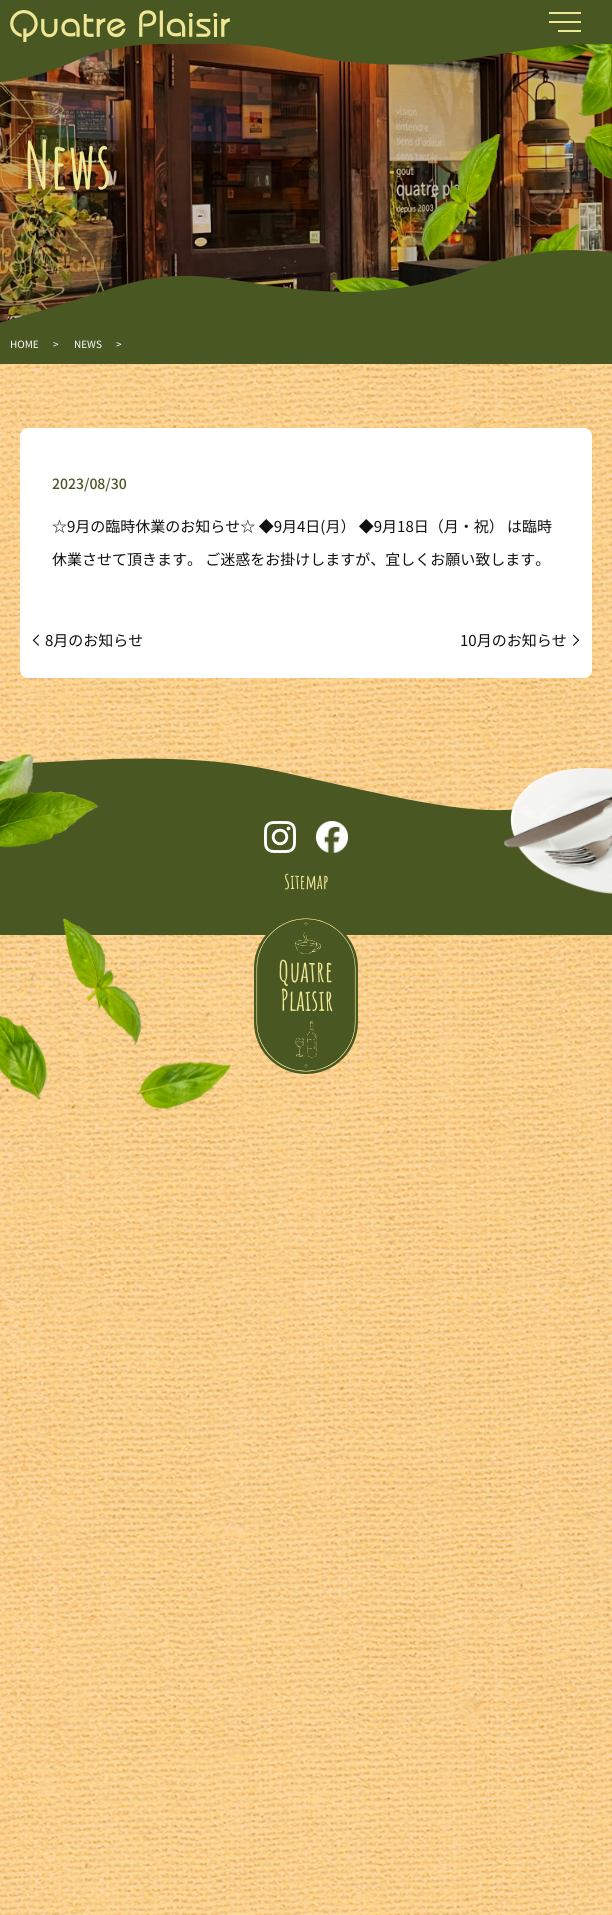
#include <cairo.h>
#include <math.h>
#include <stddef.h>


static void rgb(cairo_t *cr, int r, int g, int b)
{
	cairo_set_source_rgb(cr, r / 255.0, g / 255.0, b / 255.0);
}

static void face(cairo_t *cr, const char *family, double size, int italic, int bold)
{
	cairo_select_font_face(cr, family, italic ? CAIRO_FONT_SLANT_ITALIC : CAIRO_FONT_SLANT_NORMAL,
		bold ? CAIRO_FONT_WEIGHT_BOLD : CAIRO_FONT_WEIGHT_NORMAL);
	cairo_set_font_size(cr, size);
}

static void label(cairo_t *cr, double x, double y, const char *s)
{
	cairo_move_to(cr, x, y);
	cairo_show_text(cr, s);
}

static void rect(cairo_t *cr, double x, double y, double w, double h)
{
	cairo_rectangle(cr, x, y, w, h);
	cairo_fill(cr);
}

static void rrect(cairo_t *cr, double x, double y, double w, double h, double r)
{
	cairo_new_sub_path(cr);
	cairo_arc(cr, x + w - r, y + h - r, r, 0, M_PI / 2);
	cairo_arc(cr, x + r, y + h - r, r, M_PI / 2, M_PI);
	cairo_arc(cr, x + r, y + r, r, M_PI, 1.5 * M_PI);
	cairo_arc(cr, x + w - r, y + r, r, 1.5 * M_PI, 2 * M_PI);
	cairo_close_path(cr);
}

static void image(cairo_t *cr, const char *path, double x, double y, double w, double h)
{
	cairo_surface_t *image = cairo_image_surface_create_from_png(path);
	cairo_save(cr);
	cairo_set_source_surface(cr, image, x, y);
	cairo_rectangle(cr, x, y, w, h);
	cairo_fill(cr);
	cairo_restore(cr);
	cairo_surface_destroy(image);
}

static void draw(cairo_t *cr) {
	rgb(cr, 255, 255, 255);
	cairo_paint(cr);
	image(cr, "image0.png", 0, 364, 612, 1551);
	rgb(cr, 73, 87, 35);
	rect(cr, 0, 0, 612, 44);
	image(cr, "image1.png", 10, 10, 220, 32);
	rgb(cr, 239, 231, 148);
	rect(cr, 549, 12, 32, 2);
	rect(cr, 549, 21, 32, 2);
	rect(cr, 558, 30, 23, 2);
	image(cr, "image2.png", 0, 44, 612, 279);
	image(cr, "image3.png", 0, 82, 105, 228);
	image(cr, "image4.png", 332, 44, 280, 248);
	cairo_save(cr);
	cairo_rectangle(cr, 0, 43, 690, 40);
	cairo_clip(cr);
	rgb(cr, 73, 87, 35);
	cairo_new_path(cr);
	cairo_move_to(cr, 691, 56);
	cairo_curve_to(cr, 612, 36, 568, 43, 469, 59);
	cairo_curve_to(cr, 371, 75, 288, 52, 272, 48);
	cairo_curve_to(cr, 255, 45, 135, 34, 82, 58);
	cairo_curve_to(cr, 29, 83, -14, 85, -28, 82);
	cairo_curve_to(cr, -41, 79, -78, 78, -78, 78);
	cairo_line_to(cr, -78, 43);
	cairo_line_to(cr, 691, 43);
	cairo_close_path(cr);
	cairo_fill(cr);
	cairo_restore(cr);
	face(cr, "Amatic SC", 64, 0, 1);
	label(cr, 24, 189, "News");
	cairo_save(cr);
	cairo_rectangle(cr, 0, 250, 612, 74);
	cairo_clip(cr);
	rgb(cr, 73, 87, 35);
	cairo_new_path(cr);
	cairo_move_to(cr, 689, 267);
	cairo_curve_to(cr, 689, 267, 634, 251, 574, 250);
	cairo_curve_to(cr, 541, 250, 506, 256, 478, 267);
	cairo_curve_to(cr, 399, 297, 334, 297, 247, 282);
	cairo_curve_to(cr, 161, 267, 134, 282, 78, 299);
	cairo_curve_to(cr, 23, 317, -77, 344, -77, 344);
	cairo_line_to(cr, 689, 344);
	cairo_close_path(cr);
	cairo_fill(cr);
	cairo_restore(cr);
	rgb(cr, 73, 87, 35);
	rect(cr, 0, 324, 612, 40);
	face(cr, "Noto Sans JP", 10, 0, 0);
	rgb(cr, 255, 255, 255);
	label(cr, 10, 348, "HOME");
	label(cr, 53, 348, ">");
	label(cr, 74, 348, "NEWS");
	label(cr, 116, 348, ">");
	rrect(cr, 20, 428, 572, 250, 8);
	cairo_fill(cr);
	face(cr, "Noto Sans JP Medium", 14, 0, 0);
	rgb(cr, 73, 87, 35);
	label(cr, 52, 489, "2023/08/30");
	face(cr, "Noto Sans JP", 15, 0, 0);
	rgb(cr, 17, 17, 17);
	label(cr, 52, 532, "☆9月の臨時休業のお知らせ☆ ◆9月4日(月） ◆9月18日（月・祝） は臨時");
	label(cr, 52, 565, "休業させて頂きます。 ご迷惑をお掛けしますが、宜しくお願い致します。");
	rgb(cr, 0, 0, 0);
	cairo_new_path(cr);
	cairo_move_to(cr, 33, 640);
	cairo_line_to(cr, 38.5, 634.5);
	cairo_line_to(cr, 39, 635.5);
	cairo_line_to(cr, 33.5, 641);
	cairo_close_path(cr);
	cairo_fill(cr);
	rgb(cr, 17, 17, 17);
	label(cr, 45, 646, "8月のお知らせ");
	rgb(cr, 0, 0, 0);
	cairo_new_path(cr);
	cairo_move_to(cr, 38.5, 646);
	cairo_line_to(cr, 33, 640.5);
	cairo_line_to(cr, 33.5, 639.5);
	cairo_line_to(cr, 39, 645);
	cairo_close_path(cr);
	cairo_fill(cr);
	rgb(cr, 17, 17, 17);
	label(cr, 460, 646, "10月のお知らせ");
	rgb(cr, 0, 0, 0);
	cairo_new_path(cr);
	cairo_move_to(cr, 573.5, 634.5);
	cairo_line_to(cr, 579, 640);
	cairo_line_to(cr, 578.5, 641);
	cairo_line_to(cr, 573, 635.5);
	cairo_close_path(cr);
	cairo_fill(cr);
	cairo_new_path(cr);
	cairo_move_to(cr, 579, 640.5);
	cairo_line_to(cr, 573.5, 646);
	cairo_line_to(cr, 573, 645);
	cairo_line_to(cr, 578.5, 639.5);
	cairo_close_path(cr);
	cairo_fill(cr);
	rgb(cr, 73, 87, 35);
	cairo_new_path(cr);
	cairo_move_to(cr, -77, 735);
	cairo_curve_to(cr, -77, 735, -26, 762, 21, 763);
	cairo_curve_to(cr, 68, 763, 178, 748, 286, 773);
	cairo_curve_to(cr, 394, 797, 466, 815, 519, 809);
	cairo_curve_to(cr, 572, 802, 612, 792, 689, 822);
	cairo_line_to(cr, 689, 935);
	cairo_line_to(cr, -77, 935);
	cairo_close_path(cr);
	cairo_fill(cr);
	image(cr, "image5.png", 0, 754, 231, 355);
	image(cr, "image6.png", 264, 821, 32, 32);
	image(cr, "image7.png", 316, 821, 32, 32);
	face(cr, "Amatic SC", 20, 0, 1);
	rgb(cr, 239, 231, 148);
	cairo_save(cr);
	cairo_translate(cr, 284, 889);
	cairo_rotate(cr, 0.1 * M_PI / 180);
	label(cr, 0, 0, "Sitemap");
	cairo_restore(cr);
	image(cr, "image8.png", 504, 768, 108, 126);
	image(cr, "image9.png", 254, 918, 104, 156);
	face(cr, "Noto Sans JP SemiBold", 9, 0, 0);
	label(cr, 411, 1098, ".");
}

int main(void) {
	cairo_surface_t *surface = cairo_image_surface_create(CAIRO_FORMAT_RGB24, 612, 1915);
	cairo_t *cr = cairo_create(surface);
	cairo_font_options_t *options = cairo_font_options_create();
	cairo_font_options_set_hint_metrics(options, CAIRO_HINT_METRICS_OFF);
	cairo_font_options_set_hint_style(options, CAIRO_HINT_STYLE_NONE);
	cairo_set_font_options(cr, options);
	cairo_set_miter_limit(cr, 4);
	draw(cr);
	cairo_surface_write_to_png(surface, "render.png");
	cairo_font_options_destroy(options);
	cairo_destroy(cr);
	cairo_surface_destroy(surface);
	return 0;
}
